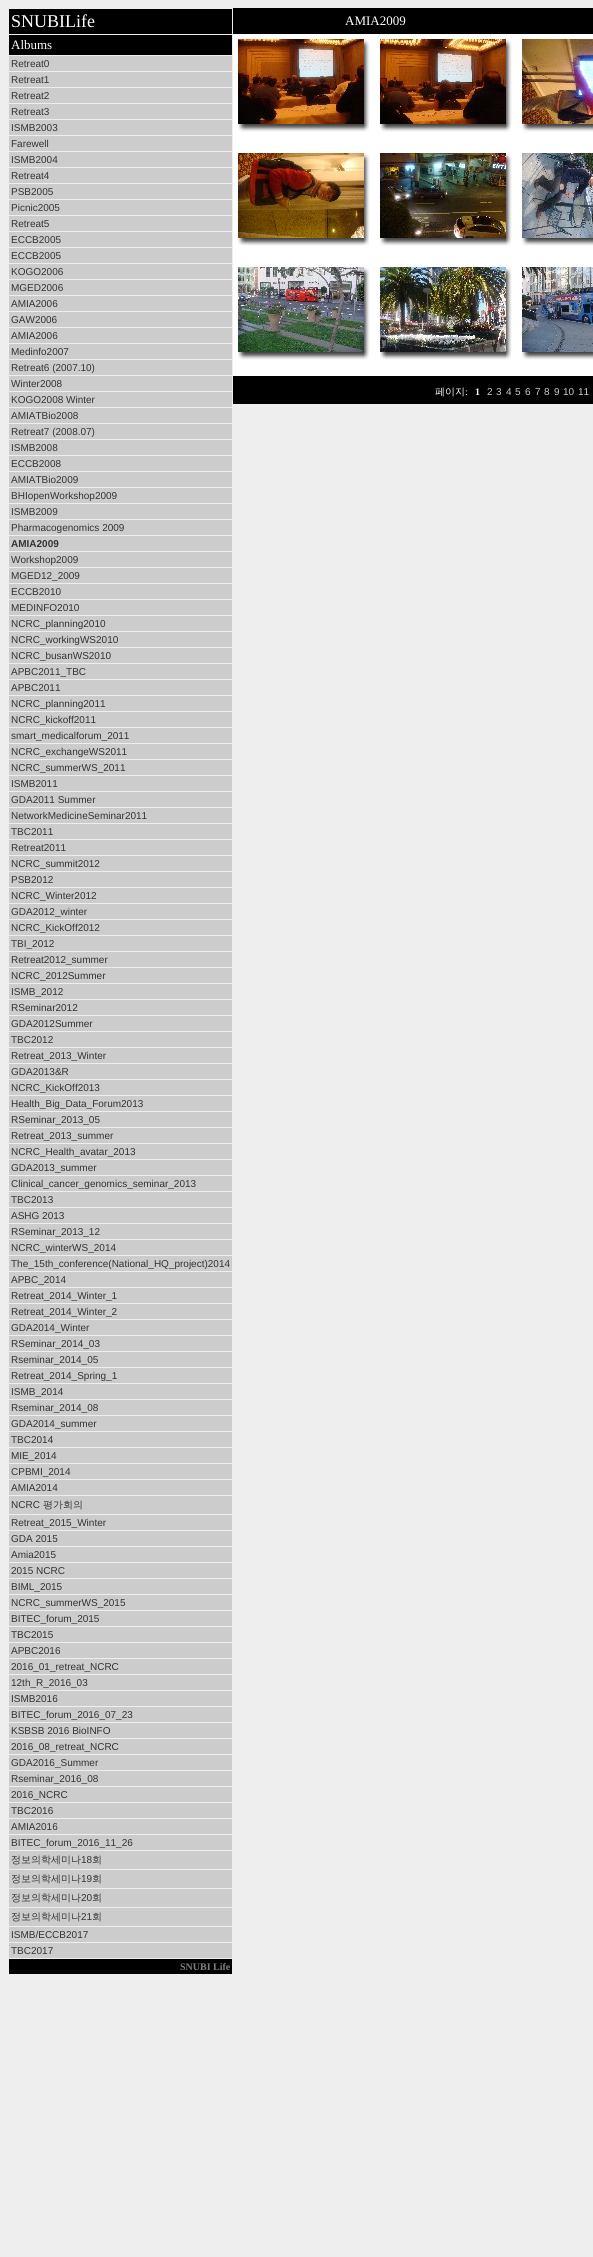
#include <cairo.h>
#include <math.h>
#include <stddef.h>


static void rgb(cairo_t *cr, int r, int g, int b)
{
	cairo_set_source_rgb(cr, r / 255.0, g / 255.0, b / 255.0);
}

static void face(cairo_t *cr, const char *family, double size, int italic, int bold)
{
	cairo_select_font_face(cr, family, italic ? CAIRO_FONT_SLANT_ITALIC : CAIRO_FONT_SLANT_NORMAL,
		bold ? CAIRO_FONT_WEIGHT_BOLD : CAIRO_FONT_WEIGHT_NORMAL);
	cairo_set_font_size(cr, size);
}

static void label(cairo_t *cr, double x, double y, const char *s)
{
	cairo_move_to(cr, x, y);
	cairo_show_text(cr, s);
}

static void rect(cairo_t *cr, double x, double y, double w, double h)
{
	cairo_rectangle(cr, x, y, w, h);
	cairo_fill(cr);
}

static void image(cairo_t *cr, const char *path, double x, double y, double w, double h)
{
	cairo_surface_t *image = cairo_image_surface_create_from_png(path);
	cairo_save(cr);
	cairo_set_source_surface(cr, image, x, y);
	cairo_rectangle(cr, x, y, w, h);
	cairo_fill(cr);
	cairo_restore(cr);
	cairo_surface_destroy(image);
}

static void draw(cairo_t *cr) {
	rgb(cr, 238, 238, 238);
	cairo_paint(cr);
	rgb(cr, 0, 0, 0);
	rect(cr, 9, 9, 223, 25);
	face(cr, "Liberation Serif", 18, 0, 0);
	rgb(cr, 255, 255, 255);
	label(cr, 11, 27, "SNUBILife");
	rgb(cr, 0, 0, 0);
	rect(cr, 9, 35, 223, 20);
	face(cr, "Liberation Serif", 13, 0, 0);
	rgb(cr, 255, 255, 255);
	label(cr, 11, 49, "Albums");
	rgb(cr, 204, 204, 204);
	rect(cr, 9, 56, 223, 15);
	face(cr, "Liberation Sans", 10, 0, 0);
	rgb(cr, 51, 51, 51);
	label(cr, 11, 67, "Retreat0");
	rgb(cr, 204, 204, 204);
	rect(cr, 9, 72, 223, 15);
	rgb(cr, 51, 51, 51);
	label(cr, 11, 83, "Retreat1");
	rgb(cr, 204, 204, 204);
	rect(cr, 9, 88, 223, 15);
	rgb(cr, 51, 51, 51);
	label(cr, 11, 99, "Retreat2");
	rgb(cr, 204, 204, 204);
	rect(cr, 9, 104, 223, 15);
	rgb(cr, 51, 51, 51);
	label(cr, 11, 115, "Retreat3");
	rgb(cr, 204, 204, 204);
	rect(cr, 9, 120, 223, 15);
	rgb(cr, 51, 51, 51);
	label(cr, 11, 131, "ISMB2003");
	rgb(cr, 204, 204, 204);
	rect(cr, 9, 136, 223, 15);
	rgb(cr, 51, 51, 51);
	label(cr, 11, 147, "Farewell");
	rgb(cr, 204, 204, 204);
	rect(cr, 9, 152, 223, 15);
	rgb(cr, 51, 51, 51);
	label(cr, 11, 163, "ISMB2004");
	rgb(cr, 204, 204, 204);
	rect(cr, 9, 168, 223, 15);
	rgb(cr, 51, 51, 51);
	label(cr, 11, 179, "Retreat4");
	rgb(cr, 204, 204, 204);
	rect(cr, 9, 184, 223, 15);
	rgb(cr, 51, 51, 51);
	label(cr, 11, 195, "PSB2005");
	rgb(cr, 204, 204, 204);
	rect(cr, 9, 200, 223, 15);
	rgb(cr, 51, 51, 51);
	label(cr, 11, 211, "Picnic2005");
	rgb(cr, 204, 204, 204);
	rect(cr, 9, 216, 223, 15);
	rgb(cr, 51, 51, 51);
	label(cr, 11, 227, "Retreat5");
	rgb(cr, 204, 204, 204);
	rect(cr, 9, 232, 223, 15);
	rgb(cr, 51, 51, 51);
	label(cr, 11, 243, "ECCB2005");
	rgb(cr, 204, 204, 204);
	rect(cr, 9, 248, 223, 15);
	rgb(cr, 51, 51, 51);
	label(cr, 11, 259, "ECCB2005");
	rgb(cr, 204, 204, 204);
	rect(cr, 9, 264, 223, 15);
	rgb(cr, 51, 51, 51);
	label(cr, 11, 275, "KOGO2006");
	rgb(cr, 204, 204, 204);
	rect(cr, 9, 280, 223, 15);
	rgb(cr, 51, 51, 51);
	label(cr, 11, 291, "MGED2006");
	rgb(cr, 204, 204, 204);
	rect(cr, 9, 296, 223, 15);
	rgb(cr, 51, 51, 51);
	label(cr, 11, 307, "AMIA2006");
	rgb(cr, 204, 204, 204);
	rect(cr, 9, 312, 223, 15);
	rgb(cr, 51, 51, 51);
	label(cr, 11, 323, "GAW2006");
	rgb(cr, 204, 204, 204);
	rect(cr, 9, 328, 223, 15);
	rgb(cr, 51, 51, 51);
	label(cr, 11, 339, "AMIA2006");
	rgb(cr, 204, 204, 204);
	rect(cr, 9, 344, 223, 15);
	rgb(cr, 51, 51, 51);
	label(cr, 11, 355, "Medinfo2007");
	rgb(cr, 204, 204, 204);
	rect(cr, 9, 360, 223, 15);
	rgb(cr, 51, 51, 51);
	label(cr, 11, 371, "Retreat6 (2007.10)");
	rgb(cr, 204, 204, 204);
	rect(cr, 9, 376, 223, 15);
	rgb(cr, 51, 51, 51);
	label(cr, 11, 387, "Winter2008");
	rgb(cr, 204, 204, 204);
	rect(cr, 9, 392, 223, 15);
	rgb(cr, 51, 51, 51);
	label(cr, 11, 403, "KOGO2008 Winter");
	rgb(cr, 204, 204, 204);
	rect(cr, 9, 408, 223, 15);
	rgb(cr, 51, 51, 51);
	label(cr, 11, 419, "AMIATBio2008");
	rgb(cr, 204, 204, 204);
	rect(cr, 9, 424, 223, 15);
	rgb(cr, 51, 51, 51);
	label(cr, 11, 435, "Retreat7 (2008.07)");
	rgb(cr, 204, 204, 204);
	rect(cr, 9, 440, 223, 15);
	rgb(cr, 51, 51, 51);
	label(cr, 11, 451, "ISMB2008");
	rgb(cr, 204, 204, 204);
	rect(cr, 9, 456, 223, 15);
	rgb(cr, 51, 51, 51);
	label(cr, 11, 467, "ECCB2008");
	rgb(cr, 204, 204, 204);
	rect(cr, 9, 472, 223, 15);
	rgb(cr, 51, 51, 51);
	label(cr, 11, 483, "AMIATBio2009");
	rgb(cr, 204, 204, 204);
	rect(cr, 9, 488, 223, 15);
	rgb(cr, 51, 51, 51);
	label(cr, 11, 499, "BHIopenWorkshop2009");
	rgb(cr, 204, 204, 204);
	rect(cr, 9, 504, 223, 15);
	rgb(cr, 51, 51, 51);
	label(cr, 11, 515, "ISMB2009");
	rgb(cr, 204, 204, 204);
	rect(cr, 9, 520, 223, 15);
	rgb(cr, 51, 51, 51);
	label(cr, 11, 531, "Pharmacogenomics 2009");
	rgb(cr, 204, 204, 204);
	rect(cr, 9, 536, 223, 15);
	face(cr, "Liberation Sans", 10, 0, 1);
	rgb(cr, 51, 51, 51);
	label(cr, 11, 547, "AMIA2009");
	rgb(cr, 204, 204, 204);
	rect(cr, 9, 552, 223, 15);
	face(cr, "Liberation Sans", 10, 0, 0);
	rgb(cr, 51, 51, 51);
	label(cr, 11, 563, "Workshop2009");
	rgb(cr, 204, 204, 204);
	rect(cr, 9, 568, 223, 15);
	rgb(cr, 51, 51, 51);
	label(cr, 11, 579, "MGED12_2009");
	rgb(cr, 204, 204, 204);
	rect(cr, 9, 584, 223, 15);
	rgb(cr, 51, 51, 51);
	label(cr, 11, 595, "ECCB2010");
	rgb(cr, 204, 204, 204);
	rect(cr, 9, 600, 223, 15);
	rgb(cr, 51, 51, 51);
	label(cr, 11, 611, "MEDINFO2010");
	rgb(cr, 204, 204, 204);
	rect(cr, 9, 616, 223, 15);
	rgb(cr, 51, 51, 51);
	label(cr, 11, 627, "NCRC_planning2010");
	rgb(cr, 204, 204, 204);
	rect(cr, 9, 632, 223, 15);
	rgb(cr, 51, 51, 51);
	label(cr, 11, 643, "NCRC_workingWS2010");
	rgb(cr, 204, 204, 204);
	rect(cr, 9, 648, 223, 15);
	rgb(cr, 51, 51, 51);
	label(cr, 11, 659, "NCRC_busanWS2010");
	rgb(cr, 204, 204, 204);
	rect(cr, 9, 664, 223, 15);
	rgb(cr, 51, 51, 51);
	label(cr, 11, 675, "APBC2011_TBC");
	rgb(cr, 204, 204, 204);
	rect(cr, 9, 680, 223, 15);
	rgb(cr, 51, 51, 51);
	label(cr, 11, 691, "APBC2011");
	rgb(cr, 204, 204, 204);
	rect(cr, 9, 696, 223, 15);
	rgb(cr, 51, 51, 51);
	label(cr, 11, 707, "NCRC_planning2011");
	rgb(cr, 204, 204, 204);
	rect(cr, 9, 712, 223, 15);
	rgb(cr, 51, 51, 51);
	label(cr, 11, 723, "NCRC_kickoff2011");
	rgb(cr, 204, 204, 204);
	rect(cr, 9, 728, 223, 15);
	rgb(cr, 51, 51, 51);
	label(cr, 11, 739, "smart_medicalforum_2011");
	rgb(cr, 204, 204, 204);
	rect(cr, 9, 744, 223, 15);
	rgb(cr, 51, 51, 51);
	label(cr, 11, 755, "NCRC_exchangeWS2011");
	rgb(cr, 204, 204, 204);
	rect(cr, 9, 760, 223, 15);
	rgb(cr, 51, 51, 51);
	label(cr, 11, 771, "NCRC_summerWS_2011");
	rgb(cr, 204, 204, 204);
	rect(cr, 9, 776, 223, 15);
	rgb(cr, 51, 51, 51);
	label(cr, 11, 787, "ISMB2011");
	rgb(cr, 204, 204, 204);
	rect(cr, 9, 792, 223, 15);
	rgb(cr, 51, 51, 51);
	label(cr, 11, 803, "GDA2011 Summer");
	rgb(cr, 204, 204, 204);
	rect(cr, 9, 808, 223, 15);
	rgb(cr, 51, 51, 51);
	label(cr, 11, 819, "NetworkMedicineSeminar2011");
	rgb(cr, 204, 204, 204);
	rect(cr, 9, 824, 223, 15);
	rgb(cr, 51, 51, 51);
	label(cr, 11, 835, "TBC2011");
	rgb(cr, 204, 204, 204);
	rect(cr, 9, 840, 223, 15);
	rgb(cr, 51, 51, 51);
	label(cr, 11, 851, "Retreat2011");
	rgb(cr, 204, 204, 204);
	rect(cr, 9, 856, 223, 15);
	rgb(cr, 51, 51, 51);
	label(cr, 11, 867, "NCRC_summit2012");
	rgb(cr, 204, 204, 204);
	rect(cr, 9, 872, 223, 15);
	rgb(cr, 51, 51, 51);
	label(cr, 11, 883, "PSB2012");
	rgb(cr, 204, 204, 204);
	rect(cr, 9, 888, 223, 15);
	rgb(cr, 51, 51, 51);
	label(cr, 11, 899, "NCRC_Winter2012");
	rgb(cr, 204, 204, 204);
	rect(cr, 9, 904, 223, 15);
	rgb(cr, 51, 51, 51);
	label(cr, 11, 915, "GDA2012_winter");
	rgb(cr, 204, 204, 204);
	rect(cr, 9, 920, 223, 15);
	rgb(cr, 51, 51, 51);
	label(cr, 11, 931, "NCRC_KickOff2012");
	rgb(cr, 204, 204, 204);
	rect(cr, 9, 936, 223, 15);
	rgb(cr, 51, 51, 51);
	label(cr, 11, 947, "TBI_2012");
	rgb(cr, 204, 204, 204);
	rect(cr, 9, 952, 223, 15);
	rgb(cr, 51, 51, 51);
	label(cr, 11, 963, "Retreat2012_summer");
	rgb(cr, 204, 204, 204);
	rect(cr, 9, 968, 223, 15);
	rgb(cr, 51, 51, 51);
	label(cr, 11, 979, "NCRC_2012Summer");
	rgb(cr, 204, 204, 204);
	rect(cr, 9, 984, 223, 15);
	rgb(cr, 51, 51, 51);
	label(cr, 11, 995, "ISMB_2012");
	rgb(cr, 204, 204, 204);
	rect(cr, 9, 1000, 223, 15);
	rgb(cr, 51, 51, 51);
	label(cr, 11, 1011, "RSeminar2012");
	rgb(cr, 204, 204, 204);
	rect(cr, 9, 1016, 223, 15);
	rgb(cr, 51, 51, 51);
	label(cr, 11, 1027, "GDA2012Summer");
	rgb(cr, 204, 204, 204);
	rect(cr, 9, 1032, 223, 15);
	rgb(cr, 51, 51, 51);
	label(cr, 11, 1043, "TBC2012");
	rgb(cr, 204, 204, 204);
	rect(cr, 9, 1048, 223, 15);
	rgb(cr, 51, 51, 51);
	label(cr, 11, 1059, "Retreat_2013_Winter");
	rgb(cr, 204, 204, 204);
	rect(cr, 9, 1064, 223, 15);
	rgb(cr, 51, 51, 51);
	label(cr, 11, 1075, "GDA2013&R");
	rgb(cr, 204, 204, 204);
	rect(cr, 9, 1080, 223, 15);
	rgb(cr, 51, 51, 51);
	label(cr, 11, 1091, "NCRC_KickOff2013");
	rgb(cr, 204, 204, 204);
	rect(cr, 9, 1096, 223, 15);
	rgb(cr, 51, 51, 51);
	label(cr, 11, 1107, "Health_Big_Data_Forum2013");
	rgb(cr, 204, 204, 204);
	rect(cr, 9, 1112, 223, 15);
	rgb(cr, 51, 51, 51);
	label(cr, 11, 1123, "RSeminar_2013_05");
	rgb(cr, 204, 204, 204);
	rect(cr, 9, 1128, 223, 15);
	rgb(cr, 51, 51, 51);
	label(cr, 11, 1139, "Retreat_2013_summer");
	rgb(cr, 204, 204, 204);
	rect(cr, 9, 1144, 223, 15);
	rgb(cr, 51, 51, 51);
	label(cr, 11, 1155, "NCRC_Health_avatar_2013");
	rgb(cr, 204, 204, 204);
	rect(cr, 9, 1160, 223, 15);
	rgb(cr, 51, 51, 51);
	label(cr, 11, 1171, "GDA2013_summer");
	rgb(cr, 204, 204, 204);
	rect(cr, 9, 1176, 223, 15);
	rgb(cr, 51, 51, 51);
	label(cr, 11, 1187, "Clinical_cancer_genomics_seminar_2013");
	rgb(cr, 204, 204, 204);
	rect(cr, 9, 1192, 223, 15);
	rgb(cr, 51, 51, 51);
	label(cr, 11, 1203, "TBC2013");
	rgb(cr, 204, 204, 204);
	rect(cr, 9, 1208, 223, 15);
	rgb(cr, 51, 51, 51);
	label(cr, 11, 1219, "ASHG 2013");
	rgb(cr, 204, 204, 204);
	rect(cr, 9, 1224, 223, 15);
	rgb(cr, 51, 51, 51);
	label(cr, 11, 1235, "RSeminar_2013_12");
	rgb(cr, 204, 204, 204);
	rect(cr, 9, 1240, 223, 15);
	rgb(cr, 51, 51, 51);
	label(cr, 11, 1251, "NCRC_winterWS_2014");
	rgb(cr, 204, 204, 204);
	rect(cr, 9, 1256, 223, 15);
	rgb(cr, 51, 51, 51);
	label(cr, 11, 1267, "The_15th_conference(National_HQ_project)2014");
	rgb(cr, 204, 204, 204);
	rect(cr, 9, 1272, 223, 15);
	rgb(cr, 51, 51, 51);
	label(cr, 11, 1283, "APBC_2014");
	rgb(cr, 204, 204, 204);
	rect(cr, 9, 1288, 223, 15);
	rgb(cr, 51, 51, 51);
	label(cr, 11, 1299, "Retreat_2014_Winter_1");
	rgb(cr, 204, 204, 204);
	rect(cr, 9, 1304, 223, 15);
	rgb(cr, 51, 51, 51);
	label(cr, 11, 1315, "Retreat_2014_Winter_2");
	rgb(cr, 204, 204, 204);
	rect(cr, 9, 1320, 223, 15);
	rgb(cr, 51, 51, 51);
	label(cr, 11, 1331, "GDA2014_Winter");
	rgb(cr, 204, 204, 204);
	rect(cr, 9, 1336, 223, 15);
	rgb(cr, 51, 51, 51);
	label(cr, 11, 1347, "RSeminar_2014_03");
	rgb(cr, 204, 204, 204);
	rect(cr, 9, 1352, 223, 15);
	rgb(cr, 51, 51, 51);
	label(cr, 11, 1363, "Rseminar_2014_05");
	rgb(cr, 204, 204, 204);
	rect(cr, 9, 1368, 223, 15);
	rgb(cr, 51, 51, 51);
	label(cr, 11, 1379, "Retreat_2014_Spring_1");
	rgb(cr, 204, 204, 204);
	rect(cr, 9, 1384, 223, 15);
	rgb(cr, 51, 51, 51);
	label(cr, 11, 1395, "ISMB_2014");
	rgb(cr, 204, 204, 204);
	rect(cr, 9, 1400, 223, 15);
	rgb(cr, 51, 51, 51);
	label(cr, 11, 1411, "Rseminar_2014_08");
	rgb(cr, 204, 204, 204);
	rect(cr, 9, 1416, 223, 15);
	rgb(cr, 51, 51, 51);
	label(cr, 11, 1427, "GDA2014_summer");
	rgb(cr, 204, 204, 204);
	rect(cr, 9, 1432, 223, 15);
	rgb(cr, 51, 51, 51);
	label(cr, 11, 1443, "TBC2014");
	rgb(cr, 204, 204, 204);
	rect(cr, 9, 1448, 223, 15);
	rgb(cr, 51, 51, 51);
	label(cr, 11, 1459, "MIE_2014");
	rgb(cr, 204, 204, 204);
	rect(cr, 9, 1464, 223, 15);
	rgb(cr, 51, 51, 51);
	label(cr, 11, 1475, "CPBMI_2014");
	rgb(cr, 204, 204, 204);
	rect(cr, 9, 1480, 223, 15);
	rgb(cr, 51, 51, 51);
	label(cr, 11, 1491, "AMIA2014");
	rgb(cr, 204, 204, 204);
	rect(cr, 9, 1496, 223, 18);
	rgb(cr, 51, 51, 51);
	label(cr, 11, 1508, "NCRC");
	face(cr, "WenQuanYi Zen Hei Medium", 10, 0, 0);
	label(cr, 43, 1508, "평가회의");
	rgb(cr, 204, 204, 204);
	rect(cr, 9, 1515, 223, 15);
	face(cr, "Liberation Sans", 10, 0, 0);
	rgb(cr, 51, 51, 51);
	label(cr, 11, 1526, "Retreat_2015_Winter");
	rgb(cr, 204, 204, 204);
	rect(cr, 9, 1531, 223, 15);
	rgb(cr, 51, 51, 51);
	label(cr, 11, 1542, "GDA 2015");
	rgb(cr, 204, 204, 204);
	rect(cr, 9, 1547, 223, 15);
	rgb(cr, 51, 51, 51);
	label(cr, 11, 1558, "Amia2015");
	rgb(cr, 204, 204, 204);
	rect(cr, 9, 1563, 223, 15);
	rgb(cr, 51, 51, 51);
	label(cr, 11, 1574, "2015 NCRC");
	rgb(cr, 204, 204, 204);
	rect(cr, 9, 1579, 223, 15);
	rgb(cr, 51, 51, 51);
	label(cr, 11, 1590, "BIML_2015");
	rgb(cr, 204, 204, 204);
	rect(cr, 9, 1595, 223, 15);
	rgb(cr, 51, 51, 51);
	label(cr, 11, 1606, "NCRC_summerWS_2015");
	rgb(cr, 204, 204, 204);
	rect(cr, 9, 1611, 223, 15);
	rgb(cr, 51, 51, 51);
	label(cr, 11, 1622, "BITEC_forum_2015");
	rgb(cr, 204, 204, 204);
	rect(cr, 9, 1627, 223, 15);
	rgb(cr, 51, 51, 51);
	label(cr, 11, 1638, "TBC2015");
	rgb(cr, 204, 204, 204);
	rect(cr, 9, 1643, 223, 15);
	rgb(cr, 51, 51, 51);
	label(cr, 11, 1654, "APBC2016");
	rgb(cr, 204, 204, 204);
	rect(cr, 9, 1659, 223, 15);
	rgb(cr, 51, 51, 51);
	label(cr, 11, 1670, "2016_01_retreat_NCRC");
	rgb(cr, 204, 204, 204);
	rect(cr, 9, 1675, 223, 15);
	rgb(cr, 51, 51, 51);
	label(cr, 11, 1686, "12th_R_2016_03");
	rgb(cr, 204, 204, 204);
	rect(cr, 9, 1691, 223, 15);
	rgb(cr, 51, 51, 51);
	label(cr, 11, 1702, "ISMB2016");
	rgb(cr, 204, 204, 204);
	rect(cr, 9, 1707, 223, 15);
	rgb(cr, 51, 51, 51);
	label(cr, 11, 1718, "BITEC_forum_2016_07_23");
	rgb(cr, 204, 204, 204);
	rect(cr, 9, 1723, 223, 15);
	rgb(cr, 51, 51, 51);
	label(cr, 11, 1734, "KSBSB 2016 BioINFO");
	rgb(cr, 204, 204, 204);
	rect(cr, 9, 1739, 223, 15);
	rgb(cr, 51, 51, 51);
	label(cr, 11, 1750, "2016_08_retreat_NCRC");
	rgb(cr, 204, 204, 204);
	rect(cr, 9, 1755, 223, 15);
	rgb(cr, 51, 51, 51);
	label(cr, 11, 1766, "GDA2016_Summer");
	rgb(cr, 204, 204, 204);
	rect(cr, 9, 1771, 223, 15);
	rgb(cr, 51, 51, 51);
	label(cr, 11, 1782, "Rseminar_2016_08");
	rgb(cr, 204, 204, 204);
	rect(cr, 9, 1787, 223, 15);
	rgb(cr, 51, 51, 51);
	label(cr, 11, 1798, "2016_NCRC");
	rgb(cr, 204, 204, 204);
	rect(cr, 9, 1803, 223, 15);
	rgb(cr, 51, 51, 51);
	label(cr, 11, 1814, "TBC2016");
	rgb(cr, 204, 204, 204);
	rect(cr, 9, 1819, 223, 15);
	rgb(cr, 51, 51, 51);
	label(cr, 11, 1830, "AMIA2016");
	rgb(cr, 204, 204, 204);
	rect(cr, 9, 1835, 223, 15);
	rgb(cr, 51, 51, 51);
	label(cr, 11, 1846, "BITEC_forum_2016_11_26");
	rgb(cr, 204, 204, 204);
	rect(cr, 9, 1851, 223, 18);
	face(cr, "WenQuanYi Zen Hei Medium", 10, 0, 0);
	rgb(cr, 51, 51, 51);
	label(cr, 11, 1863, "정보의학세미나");
	face(cr, "Liberation Sans", 10, 0, 0);
	label(cr, 81, 1863, "18");
	face(cr, "WenQuanYi Zen Hei Medium", 10, 0, 0);
	label(cr, 92, 1863, "회");
	rgb(cr, 204, 204, 204);
	rect(cr, 9, 1870, 223, 18);
	rgb(cr, 51, 51, 51);
	label(cr, 11, 1882, "정보의학세미나");
	face(cr, "Liberation Sans", 10, 0, 0);
	label(cr, 81, 1882, "19");
	face(cr, "WenQuanYi Zen Hei Medium", 10, 0, 0);
	label(cr, 92, 1882, "회");
	rgb(cr, 204, 204, 204);
	rect(cr, 9, 1889, 223, 18);
	rgb(cr, 51, 51, 51);
	label(cr, 11, 1901, "정보의학세미나");
	face(cr, "Liberation Sans", 10, 0, 0);
	label(cr, 81, 1901, "20");
	face(cr, "WenQuanYi Zen Hei Medium", 10, 0, 0);
	label(cr, 92, 1901, "회");
	rgb(cr, 204, 204, 204);
	rect(cr, 9, 1908, 223, 18);
	rgb(cr, 51, 51, 51);
	label(cr, 11, 1920, "정보의학세미나");
	face(cr, "Liberation Sans", 10, 0, 0);
	label(cr, 81, 1920, "21");
	face(cr, "WenQuanYi Zen Hei Medium", 10, 0, 0);
	label(cr, 92, 1920, "회");
	rgb(cr, 204, 204, 204);
	rect(cr, 9, 1927, 223, 15);
	face(cr, "Liberation Sans", 10, 0, 0);
	rgb(cr, 51, 51, 51);
	label(cr, 11, 1938, "ISMB/ECCB2017");
	rgb(cr, 204, 204, 204);
	rect(cr, 9, 1943, 223, 15);
	rgb(cr, 51, 51, 51);
	label(cr, 11, 1954, "TBC2017");
	rgb(cr, 0, 0, 0);
	rect(cr, 9, 1959, 223, 15);
	face(cr, "Liberation Serif", 10, 0, 1);
	rgb(cr, 128, 128, 128);
	label(cr, 180, 1970, "SNUBI Life");
	rgb(cr, 0, 0, 0);
	rect(cr, 233, 8, 360, 26);
	face(cr, "Liberation Serif", 13, 0, 0);
	rgb(cr, 255, 255, 255);
	label(cr, 345, 25, "AMIA2009");
	rect(cr, 233, 34, 360, 114);
	image(cr, "image0.png", 238, 39, 126, 85);
	image(cr, "image1.png", 364, 39, 6, 8);
	image(cr, "image2.png", 364, 47, 6, 77);
	image(cr, "image3.png", 238, 124, 7, 8);
	image(cr, "image4.png", 245, 124, 119, 8);
	image(cr, "image5.png", 364, 124, 5, 8);
	image(cr, "image6.png", 380, 39, 126, 85);
	image(cr, "image1.png", 506, 39, 6, 8);
	image(cr, "image2.png", 506, 47, 6, 77);
	image(cr, "image3.png", 380, 124, 7, 8);
	image(cr, "image4.png", 387, 124, 119, 8);
	image(cr, "image5.png", 506, 124, 5, 8);
	image(cr, "image7.png", 522, 39, 71, 85);
	image(cr, "image3.png", 522, 124, 7, 8);
	image(cr, "image8.png", 529, 124, 64, 8);
	rect(cr, 233, 148, 360, 114);
	image(cr, "image9.png", 238, 153, 126, 85);
	image(cr, "image1.png", 364, 153, 6, 8);
	image(cr, "image2.png", 364, 161, 6, 77);
	image(cr, "image3.png", 238, 238, 7, 8);
	image(cr, "image4.png", 245, 238, 119, 8);
	image(cr, "image5.png", 364, 238, 5, 8);
	image(cr, "image10.png", 380, 153, 126, 85);
	image(cr, "image1.png", 506, 153, 6, 8);
	image(cr, "image2.png", 506, 161, 6, 77);
	image(cr, "image3.png", 380, 238, 7, 8);
	image(cr, "image4.png", 387, 238, 119, 8);
	image(cr, "image5.png", 506, 238, 5, 8);
	image(cr, "image11.png", 522, 153, 71, 85);
	image(cr, "image3.png", 522, 238, 7, 8);
	image(cr, "image8.png", 529, 238, 64, 8);
	rect(cr, 233, 262, 360, 114);
	image(cr, "image12.png", 238, 267, 126, 85);
	image(cr, "image1.png", 364, 267, 6, 8);
	image(cr, "image2.png", 364, 275, 6, 77);
	image(cr, "image3.png", 238, 352, 7, 8);
	image(cr, "image4.png", 245, 352, 119, 8);
	image(cr, "image5.png", 364, 352, 5, 8);
	image(cr, "image13.png", 380, 267, 126, 85);
	image(cr, "image1.png", 506, 267, 6, 8);
	image(cr, "image2.png", 506, 275, 6, 77);
	image(cr, "image3.png", 380, 352, 7, 8);
	image(cr, "image4.png", 387, 352, 119, 8);
	image(cr, "image5.png", 506, 352, 5, 8);
	image(cr, "image14.png", 522, 267, 71, 85);
	image(cr, "image3.png", 522, 352, 7, 8);
	image(cr, "image8.png", 529, 352, 64, 8);
	rgb(cr, 0, 0, 0);
	rect(cr, 233, 376, 360, 28);
	face(cr, "WenQuanYi Zen Hei Medium", 10, 0, 0);
	rgb(cr, 255, 255, 255);
	label(cr, 435, 395, "페이지");
	face(cr, "Liberation Serif", 10, 0, 0);
	label(cr, 465, 395, ":");
	face(cr, "Liberation Serif", 10, 0, 1);
	label(cr, 475, 395, "1");
	face(cr, "Liberation Sans", 10, 0, 0);
	rgb(cr, 204, 204, 204);
	label(cr, 487, 395, "2");
	label(cr, 496, 395, "3");
	label(cr, 506, 395, "4");
	label(cr, 515, 395, "5");
	label(cr, 525, 395, "6");
	label(cr, 535, 395, "7");
	label(cr, 544, 395, "8");
	label(cr, 554, 395, "9");
	label(cr, 563, 395, "10");
	label(cr, 578, 395, "11");
}

int main(void) {
	cairo_surface_t *surface = cairo_image_surface_create(CAIRO_FORMAT_RGB24, 593, 2257);
	cairo_t *cr = cairo_create(surface);
	cairo_font_options_t *options = cairo_font_options_create();
	cairo_font_options_set_hint_metrics(options, CAIRO_HINT_METRICS_OFF);
	cairo_font_options_set_hint_style(options, CAIRO_HINT_STYLE_NONE);
	cairo_set_font_options(cr, options);
	cairo_set_miter_limit(cr, 4);
	draw(cr);
	cairo_surface_write_to_png(surface, "render.png");
	cairo_font_options_destroy(options);
	cairo_destroy(cr);
	cairo_surface_destroy(surface);
	return 0;
}
